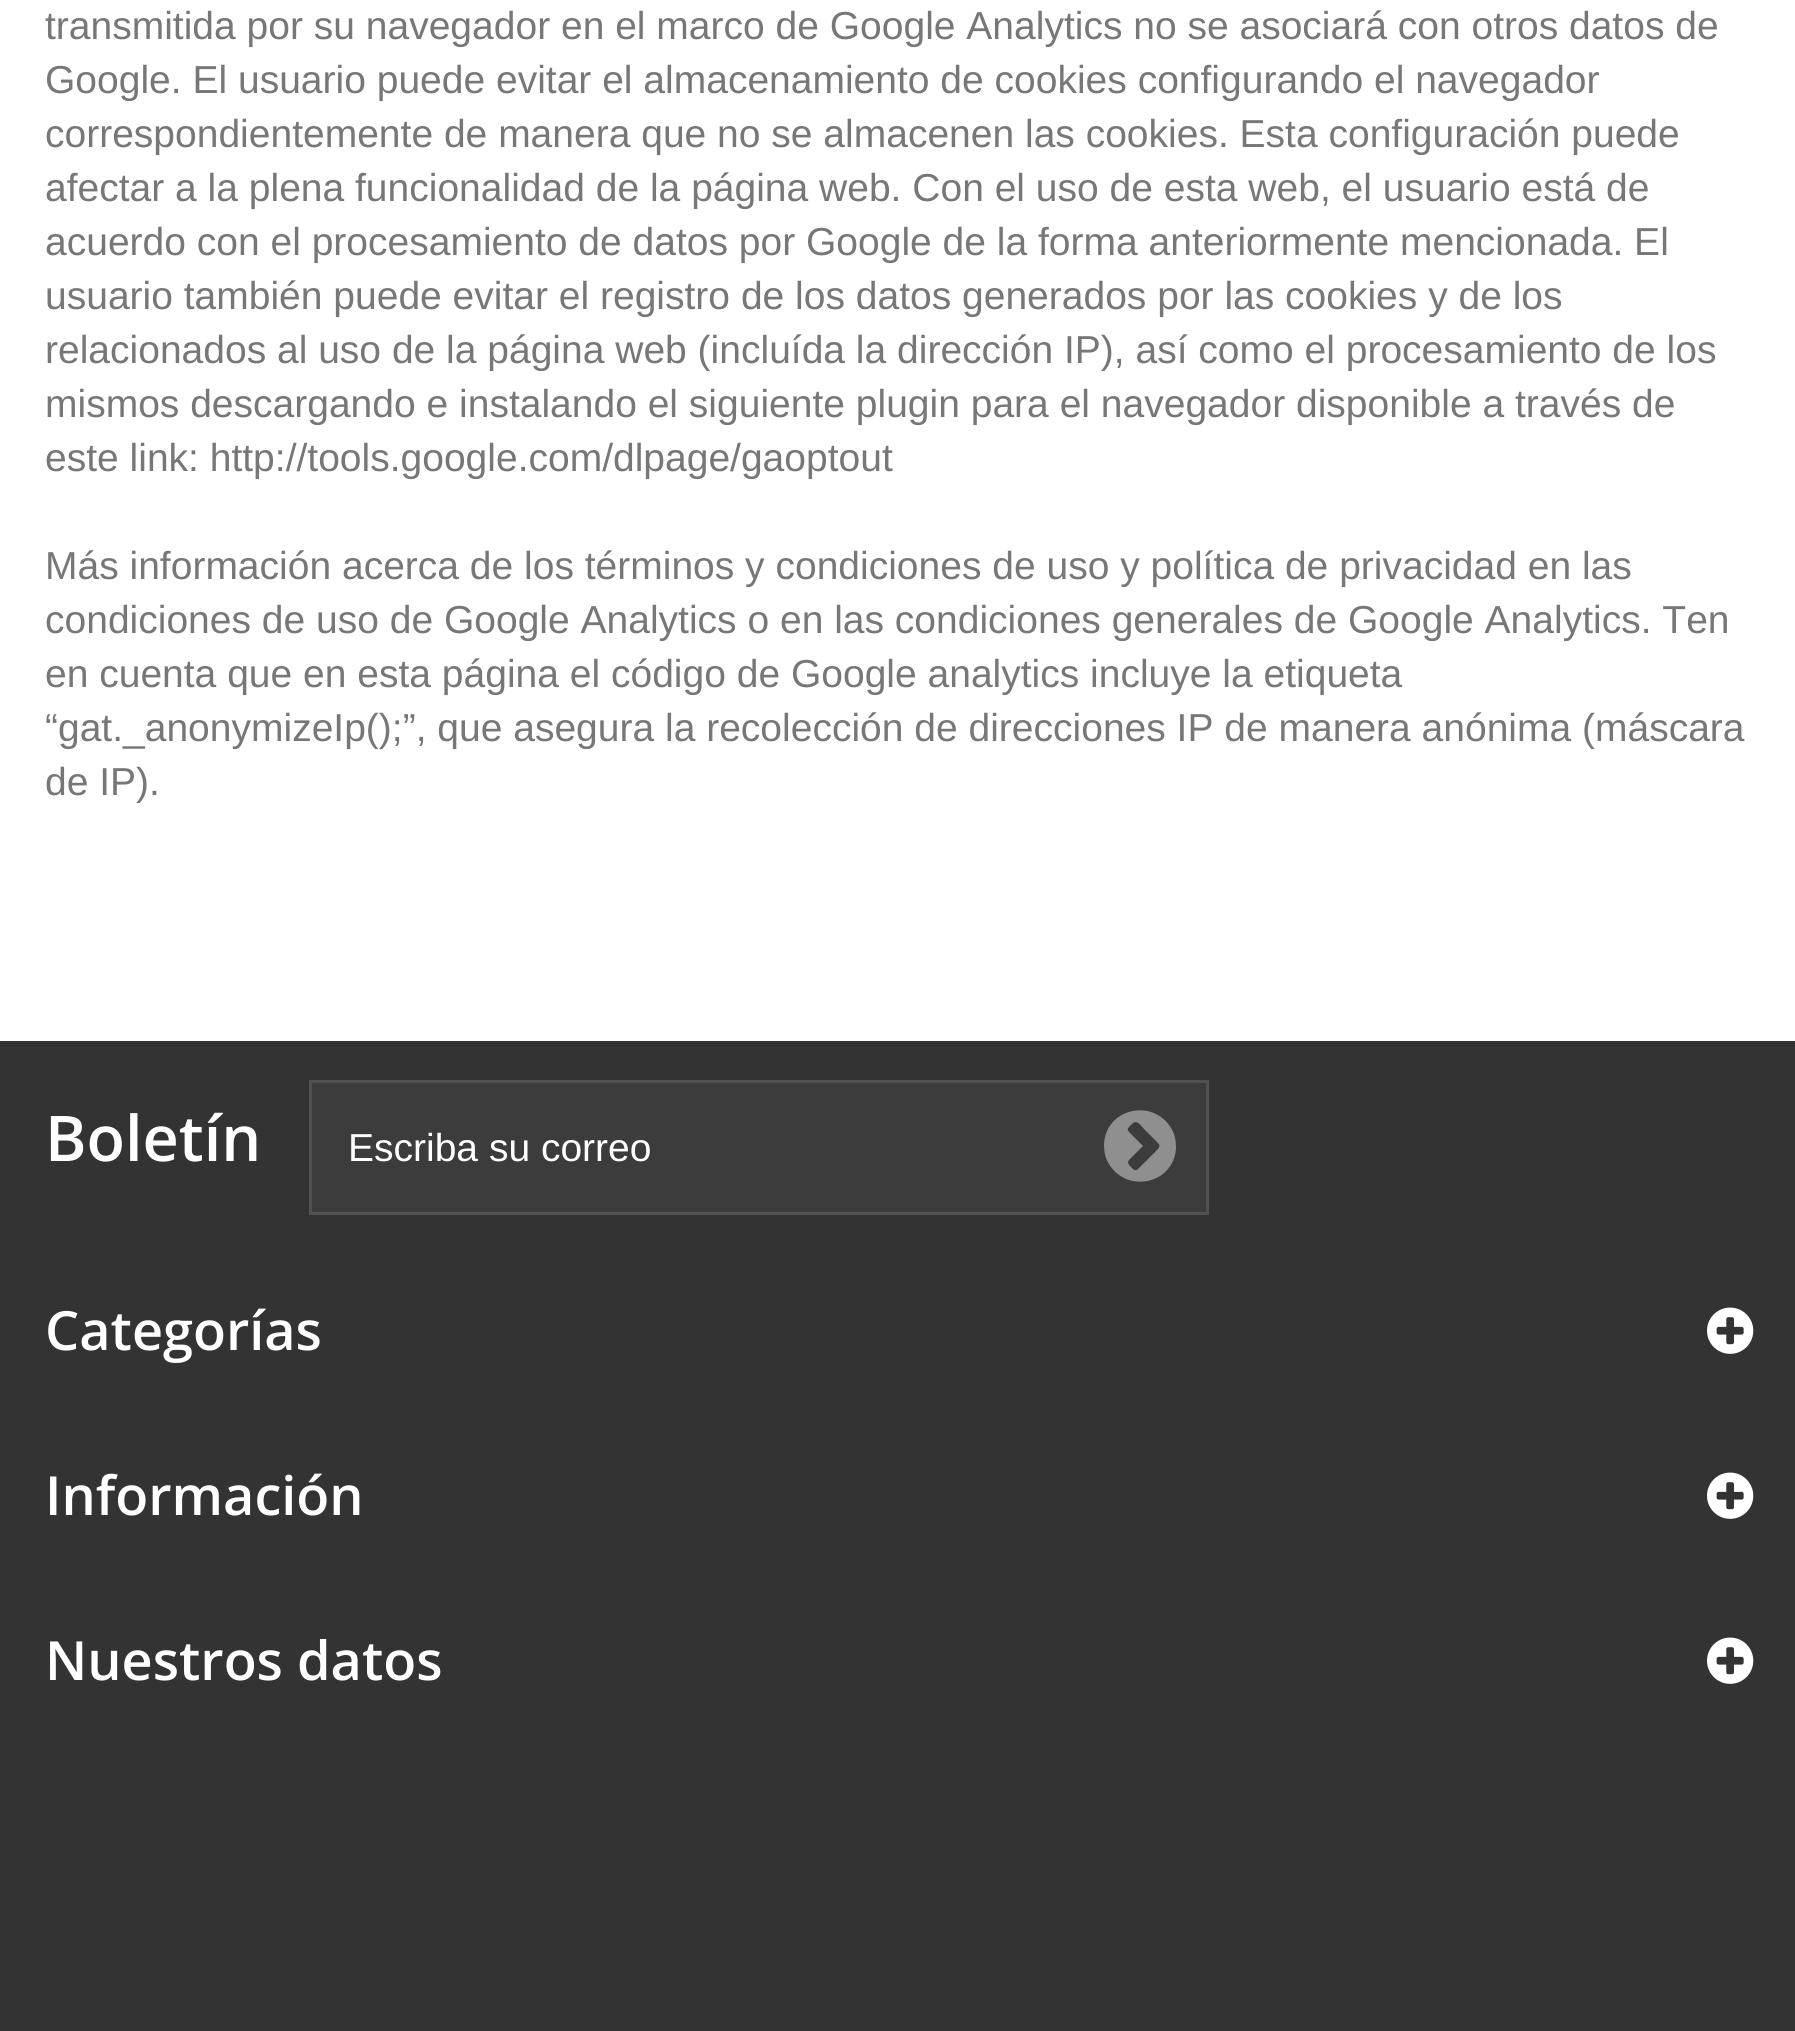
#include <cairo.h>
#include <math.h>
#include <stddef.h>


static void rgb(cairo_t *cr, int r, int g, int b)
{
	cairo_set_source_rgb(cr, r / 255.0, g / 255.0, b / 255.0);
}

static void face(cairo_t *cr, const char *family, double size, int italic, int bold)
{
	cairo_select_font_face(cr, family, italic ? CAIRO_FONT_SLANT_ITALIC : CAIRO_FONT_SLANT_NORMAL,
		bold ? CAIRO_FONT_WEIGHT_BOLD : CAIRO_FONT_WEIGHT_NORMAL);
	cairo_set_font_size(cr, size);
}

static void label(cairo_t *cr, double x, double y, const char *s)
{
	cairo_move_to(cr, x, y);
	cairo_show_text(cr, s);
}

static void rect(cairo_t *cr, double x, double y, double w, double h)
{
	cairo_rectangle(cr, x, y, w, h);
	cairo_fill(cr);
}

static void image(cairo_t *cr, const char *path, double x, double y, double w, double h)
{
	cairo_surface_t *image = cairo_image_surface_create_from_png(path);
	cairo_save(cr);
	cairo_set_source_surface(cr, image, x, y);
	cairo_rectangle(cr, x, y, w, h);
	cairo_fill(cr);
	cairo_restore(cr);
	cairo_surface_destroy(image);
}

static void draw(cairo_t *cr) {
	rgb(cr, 255, 255, 255);
	cairo_paint(cr);
	face(cr, "Liberation Sans", 39, 0, 0);
	rgb(cr, 119, 119, 119);
	label(cr, 45, 39, "transmitida por su navegador en el marco de Google Analytics no se asociará con otros datos de");
	label(cr, 45, 93, "Google. El usuario puede evitar el almacenamiento de cookies configurando el navegador");
	label(cr, 45, 147, "correspondientemente de manera que no se almacenen las cookies. Esta configuración puede");
	label(cr, 45, 201, "afectar a la plena funcionalidad de la página web. Con el uso de esta web, el usuario está de");
	label(cr, 45, 255, "acuerdo con el procesamiento de datos por Google de la forma anteriormente mencionada. El");
	label(cr, 45, 309, "usuario también puede evitar el registro de los datos generados por las cookies y de los");
	label(cr, 45, 363, "relacionados al uso de la página web (incluída la dirección IP), así como el procesamiento de los");
	label(cr, 45, 417, "mismos descargando e instalando el siguiente plugin para el navegador disponible a través de");
	label(cr, 45, 471, "este link: http://tools.google.com/dlpage/gaoptout");
	label(cr, 45, 579, "Más información acerca de los términos y condiciones de uso y política de privacidad en las");
	label(cr, 45, 633, "condiciones de uso de Google Analytics o en las condiciones generales de Google Analytics. Ten");
	label(cr, 45, 687, "en cuenta que en esta página el código de Google analytics incluye la etiqueta");
	label(cr, 45, 741, "“gat._anonymizeIp();”, que asegura la recolección de direcciones IP de manera anónima (máscara");
	label(cr, 45, 795, "de IP).");
	rgb(cr, 51, 51, 51);
	rect(cr, 0, 1041, 1795, 990);
	face(cr, "Open Sans SemiBold", 63, 0, 0);
	rgb(cr, 255, 255, 255);
	label(cr, 45, 1161, "Boletín");
	rgb(cr, 60, 60, 60);
	cairo_rectangle(cr, 310.5, 1081.5, 897, 132);
	cairo_fill_preserve(cr);
	rgb(cr, 81, 81, 81);
	cairo_set_line_width(cr, 3);
	cairo_stroke(cr);
	face(cr, "Liberation Sans", 39, 0, 0);
	rgb(cr, 255, 255, 255);
	label(cr, 348, 1161, "Escriba su correo");
	rgb(cr, 144, 143, 143);
	cairo_new_path(cr);
	cairo_move_to(cr, 1138, 1169);
	cairo_line_to(cr, 1155, 1152);
	cairo_curve_to(cr, 1161, 1146, 1161, 1146, 1155, 1140);
	cairo_line_to(cr, 1145, 1130);
	cairo_curve_to(cr, 1140, 1125, 1137, 1119, 1132, 1124);
	cairo_curve_to(cr, 1127, 1129, 1126, 1129, 1131, 1134);
	cairo_line_to(cr, 1143, 1146);
	cairo_line_to(cr, 1131, 1158);
	cairo_curve_to(cr, 1127, 1162, 1127, 1163, 1131, 1167);
	cairo_curve_to(cr, 1133, 1169, 1135, 1172, 1138, 1169);
	cairo_close_path(cr);
	cairo_move_to(cr, 1171, 1128);
	cairo_curve_to(cr, 1175, 1134, 1176, 1141, 1176, 1148);
	cairo_curve_to(cr, 1174, 1184, 1127, 1194, 1109, 1164);
	cairo_curve_to(cr, 1105, 1158, 1104, 1151, 1104, 1144);
	cairo_curve_to(cr, 1106, 1108, 1153, 1098, 1171, 1128);
	cairo_close_path(cr);
	cairo_fill(cr);
	face(cr, "Open Sans SemiBold", 54, 0, 0);
	rgb(cr, 255, 255, 255);
	label(cr, 45, 1350, "Categorías");
	image(cr, "image0.png", 1707, 1307, 47, 47);
	label(cr, 45, 1515, "Información");
	image(cr, "image0.png", 1707, 1472, 47, 47);
	label(cr, 45, 1680, "Nuestros datos");
	image(cr, "image0.png", 1707, 1637, 47, 47);
}

int main(void) {
	cairo_surface_t *surface = cairo_image_surface_create(CAIRO_FORMAT_RGB24, 1795, 2031);
	cairo_t *cr = cairo_create(surface);
	cairo_font_options_t *options = cairo_font_options_create();
	cairo_font_options_set_hint_metrics(options, CAIRO_HINT_METRICS_OFF);
	cairo_font_options_set_hint_style(options, CAIRO_HINT_STYLE_NONE);
	cairo_set_font_options(cr, options);
	cairo_set_miter_limit(cr, 4);
	draw(cr);
	cairo_surface_write_to_png(surface, "render.png");
	cairo_font_options_destroy(options);
	cairo_destroy(cr);
	cairo_surface_destroy(surface);
	return 0;
}
